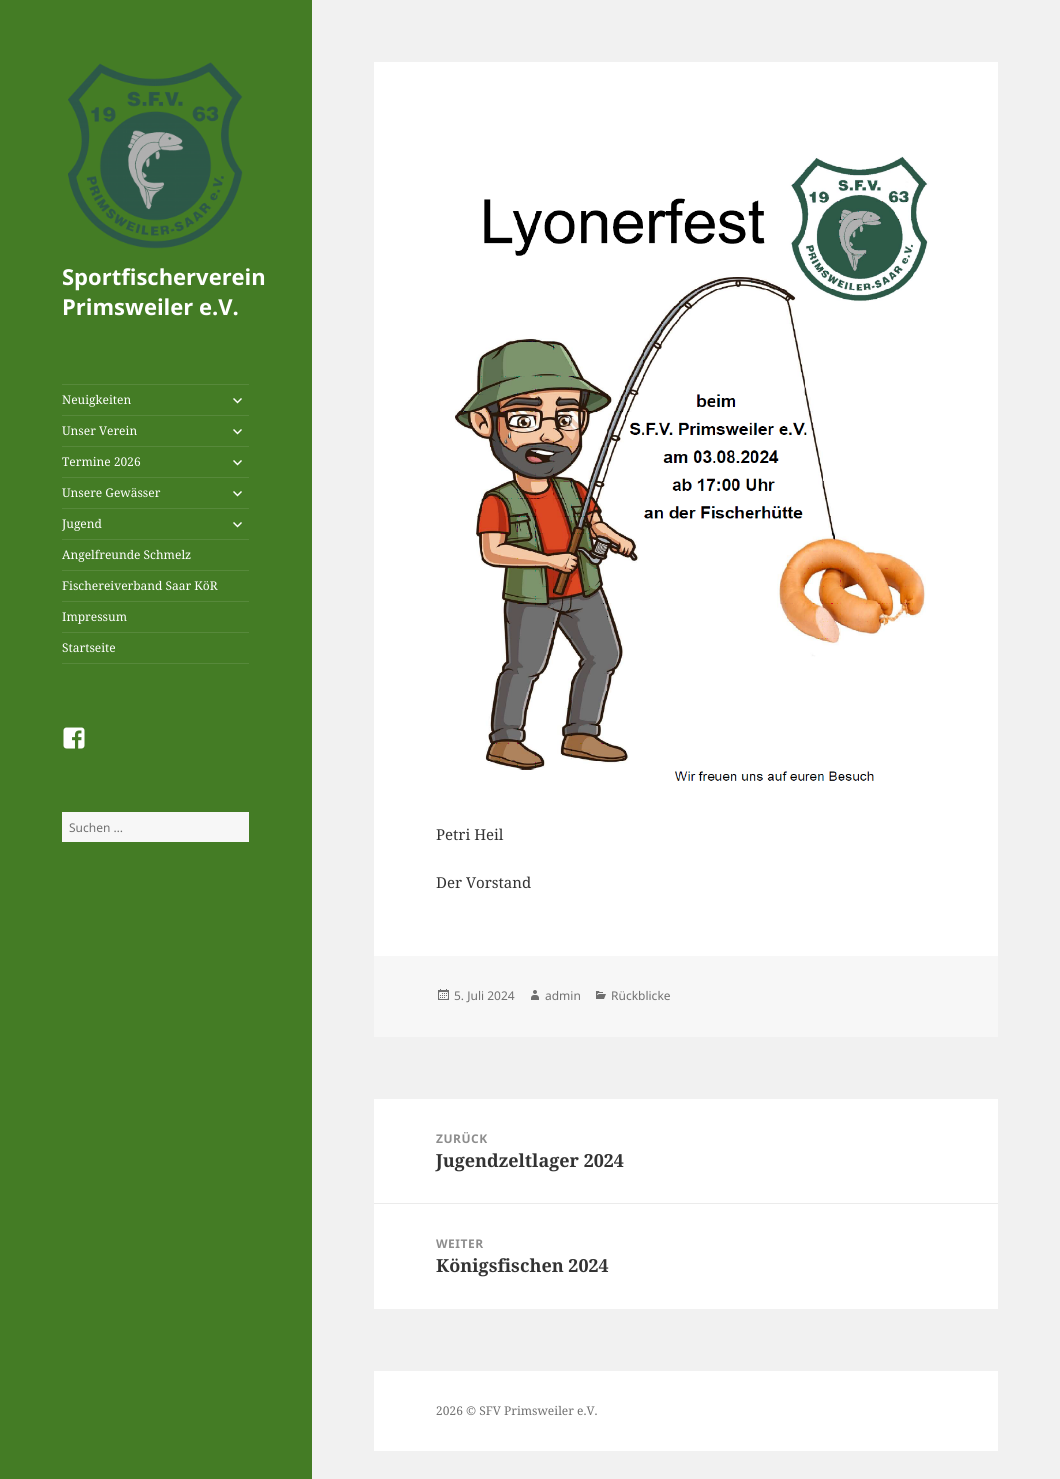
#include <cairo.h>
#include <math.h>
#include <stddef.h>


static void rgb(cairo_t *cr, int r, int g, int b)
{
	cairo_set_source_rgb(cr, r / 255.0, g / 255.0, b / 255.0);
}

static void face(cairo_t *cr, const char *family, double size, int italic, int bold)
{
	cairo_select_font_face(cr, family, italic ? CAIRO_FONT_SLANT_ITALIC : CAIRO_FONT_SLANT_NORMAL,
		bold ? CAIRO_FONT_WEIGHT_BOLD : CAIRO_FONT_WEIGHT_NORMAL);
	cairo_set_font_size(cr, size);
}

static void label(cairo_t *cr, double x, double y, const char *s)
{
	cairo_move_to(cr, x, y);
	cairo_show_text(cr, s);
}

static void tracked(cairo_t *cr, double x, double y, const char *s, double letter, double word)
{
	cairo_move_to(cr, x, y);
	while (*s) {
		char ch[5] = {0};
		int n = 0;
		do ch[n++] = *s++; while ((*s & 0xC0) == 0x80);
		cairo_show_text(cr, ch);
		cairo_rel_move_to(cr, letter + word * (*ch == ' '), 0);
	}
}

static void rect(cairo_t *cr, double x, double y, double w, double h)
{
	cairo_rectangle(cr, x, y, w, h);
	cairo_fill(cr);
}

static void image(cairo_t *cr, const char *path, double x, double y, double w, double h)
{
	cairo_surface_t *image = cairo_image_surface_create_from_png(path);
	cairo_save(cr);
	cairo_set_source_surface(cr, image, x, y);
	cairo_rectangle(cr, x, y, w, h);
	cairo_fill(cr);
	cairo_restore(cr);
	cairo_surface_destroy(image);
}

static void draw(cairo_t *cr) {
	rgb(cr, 241, 241, 241);
	cairo_paint(cr);
	rgb(cr, 68, 124, 37);
	rect(cr, 0, 0, 312, 1479);
	image(cr, "image0.png", 68, 62, 175, 187);
	face(cr, "Noto Sans", 22, 0, 1);
	rgb(cr, 255, 255, 255);
	label(cr, 62, 285, "Sportfischerverein");
	label(cr, 62, 315, "Primsweiler e.V.");
	rgb(cr, 87, 137, 59);
	rect(cr, 62, 384, 187, 1);
	rect(cr, 62, 663, 187, 1);
	face(cr, "Noto Serif", 12, 0, 0);
	rgb(cr, 255, 255, 255);
	label(cr, 62, 404, "Neuigkeiten");
	image(cr, "image1.png", 233, 398, 9, 6);
	rgb(cr, 87, 137, 59);
	rect(cr, 62, 415, 187, 1);
	rgb(cr, 255, 255, 255);
	label(cr, 62, 435, "Unser Verein");
	image(cr, "image1.png", 233, 429, 9, 6);
	rgb(cr, 87, 137, 59);
	rect(cr, 62, 446, 187, 1);
	rgb(cr, 255, 255, 255);
	label(cr, 62, 466, "Termine 2026");
	image(cr, "image1.png", 233, 460, 9, 6);
	rgb(cr, 87, 137, 59);
	rect(cr, 62, 477, 187, 1);
	rgb(cr, 255, 255, 255);
	label(cr, 62, 497, "Unsere Gewässer");
	image(cr, "image1.png", 233, 491, 9, 6);
	rgb(cr, 87, 137, 59);
	rect(cr, 62, 508, 187, 1);
	rgb(cr, 255, 255, 255);
	label(cr, 62, 528, "Jugend");
	image(cr, "image1.png", 233, 522, 9, 6);
	rgb(cr, 87, 137, 59);
	rect(cr, 62, 539, 187, 1);
	rgb(cr, 255, 255, 255);
	label(cr, 62, 559, "Angelfreunde Schmelz");
	rgb(cr, 87, 137, 59);
	rect(cr, 62, 570, 187, 1);
	rgb(cr, 255, 255, 255);
	label(cr, 62, 590, "Fischereiverband Saar KöR");
	rgb(cr, 87, 137, 59);
	rect(cr, 62, 601, 187, 1);
	rgb(cr, 255, 255, 255);
	label(cr, 62, 621, "Impressum");
	rgb(cr, 87, 137, 59);
	rect(cr, 62, 632, 187, 1);
	rgb(cr, 255, 255, 255);
	label(cr, 62, 652, "Startseite");
	image(cr, "image2.png", 63, 727, 22, 22);
	rgb(cr, 247, 247, 247);
	rect(cr, 62, 812, 187, 30);
	face(cr, "Noto Sans", 12, 0, 0);
	rgb(cr, 112, 112, 112);
	label(cr, 69, 832, "Suchen …");
	rgb(cr, 255, 255, 255);
	rect(cr, 374, 62, 624, 894);
	image(cr, "image3.png", 436, 156, 499, 625);
	face(cr, "Noto Serif", 15, 0, 0);
	rgb(cr, 51, 51, 51);
	label(cr, 436, 840, "Petri Heil");
	label(cr, 436, 888, "Der Vorstand");
	rgb(cr, 247, 247, 247);
	rect(cr, 374, 956, 624, 81);
	image(cr, "image4.png", 438, 989, 11, 11);
	face(cr, "Noto Sans", 12, 0, 0);
	rgb(cr, 112, 112, 112);
	label(cr, 454, 1000, "5. Juli 2024");
	image(cr, "image5.png", 531, 990, 8, 10);
	label(cr, 545, 1000, "admin");
	image(cr, "image6.png", 596, 991, 10, 8);
	label(cr, 611, 1000, "Rückblicke");
	rgb(cr, 255, 255, 255);
	rect(cr, 374, 1099, 624, 210);
	face(cr, "Noto Sans", 12, 0, 1);
	rgb(cr, 141, 141, 141);
	tracked(cr, 436, 1143, "ZURÜCK", 0.5, 0);
	face(cr, "Noto Serif", 18, 0, 1);
	rgb(cr, 51, 51, 51);
	label(cr, 436, 1167, "Jugendzeltlager 2024");
	rgb(cr, 235, 235, 235);
	rect(cr, 374, 1203, 624, 1);
	face(cr, "Noto Sans", 12, 0, 1);
	rgb(cr, 141, 141, 141);
	tracked(cr, 436, 1248, "WEITER", 0.5, 0);
	face(cr, "Noto Serif", 18, 0, 1);
	rgb(cr, 51, 51, 51);
	label(cr, 436, 1272, "Königsfischen 2024");
	rgb(cr, 255, 255, 255);
	rect(cr, 374, 1371, 624, 80);
	face(cr, "Noto Serif", 12, 0, 0);
	rgb(cr, 112, 112, 112);
	label(cr, 436, 1415, "2026 © SFV Primsweiler e.V.");
}

int main(void) {
	cairo_surface_t *surface = cairo_image_surface_create(CAIRO_FORMAT_RGB24, 1060, 1479);
	cairo_t *cr = cairo_create(surface);
	cairo_font_options_t *options = cairo_font_options_create();
	cairo_font_options_set_hint_metrics(options, CAIRO_HINT_METRICS_OFF);
	cairo_font_options_set_hint_style(options, CAIRO_HINT_STYLE_NONE);
	cairo_set_font_options(cr, options);
	cairo_set_miter_limit(cr, 4);
	draw(cr);
	cairo_surface_write_to_png(surface, "render.png");
	cairo_font_options_destroy(options);
	cairo_destroy(cr);
	cairo_surface_destroy(surface);
	return 0;
}
